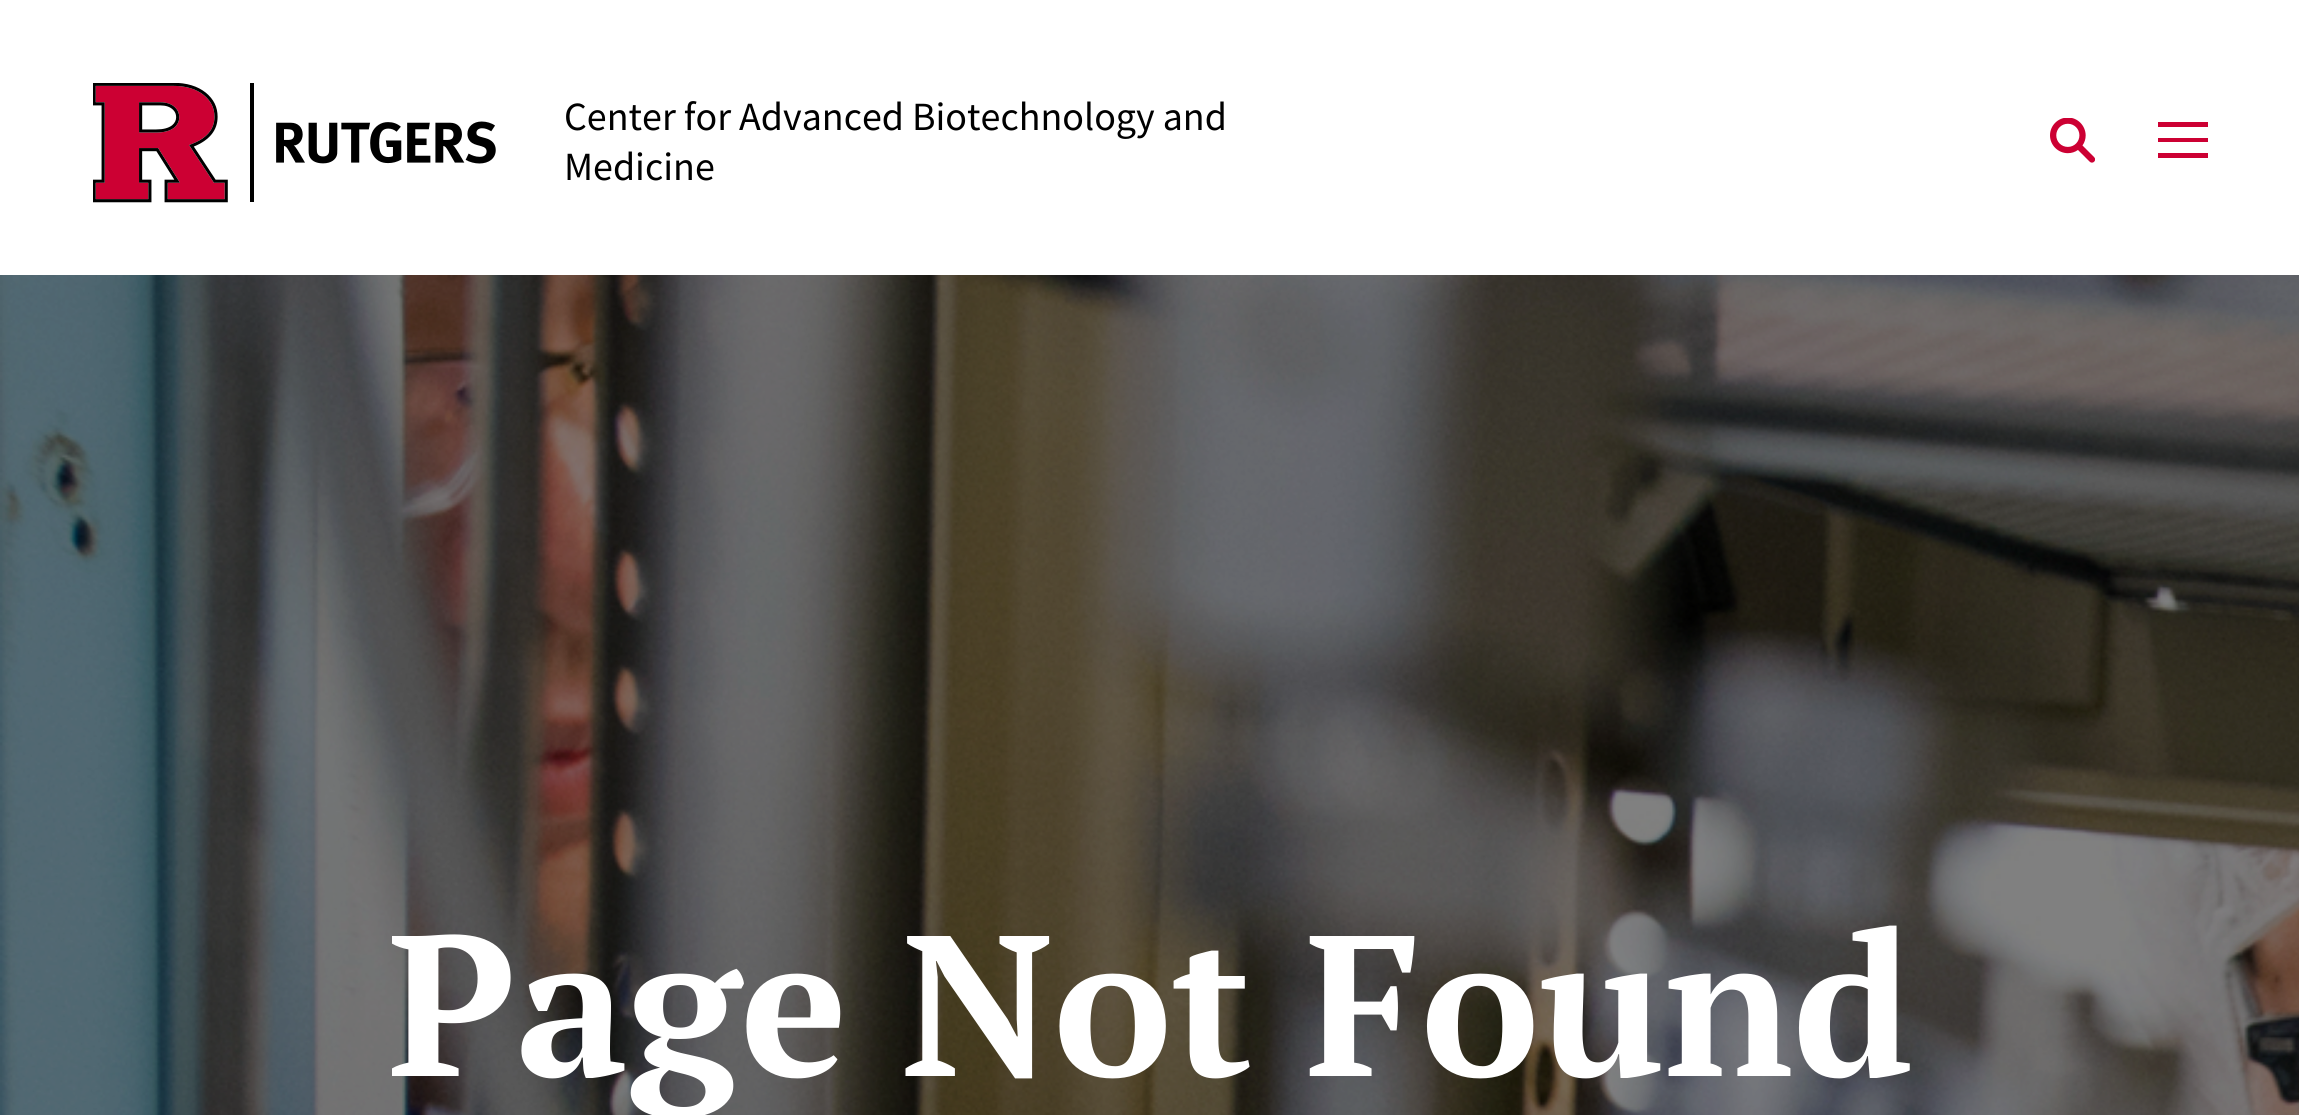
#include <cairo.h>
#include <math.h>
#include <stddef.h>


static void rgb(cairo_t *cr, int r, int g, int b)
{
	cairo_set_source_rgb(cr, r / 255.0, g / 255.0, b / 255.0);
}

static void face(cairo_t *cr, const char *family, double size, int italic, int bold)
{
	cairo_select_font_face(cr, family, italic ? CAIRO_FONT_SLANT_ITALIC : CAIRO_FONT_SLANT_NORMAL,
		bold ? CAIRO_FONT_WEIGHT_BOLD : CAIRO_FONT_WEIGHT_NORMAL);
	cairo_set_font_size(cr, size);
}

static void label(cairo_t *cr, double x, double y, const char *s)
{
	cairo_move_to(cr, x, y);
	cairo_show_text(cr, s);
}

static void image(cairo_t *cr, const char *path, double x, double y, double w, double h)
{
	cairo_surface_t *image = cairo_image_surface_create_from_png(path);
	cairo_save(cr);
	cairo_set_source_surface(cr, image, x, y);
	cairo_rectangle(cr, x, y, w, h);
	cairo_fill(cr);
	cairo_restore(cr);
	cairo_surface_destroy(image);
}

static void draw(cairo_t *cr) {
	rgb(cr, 255, 255, 255);
	cairo_paint(cr);
	image(cr, "image0.png", 93, 83, 403, 120);
	face(cr, "Source Sans Pro", 40, 0, 0);
	rgb(cr, 0, 0, 0);
	label(cr, 564, 130, "Center for Advanced Biotechnology and");
	label(cr, 564, 180, "Medicine");
	image(cr, "image1.png", 2050, 118, 45, 45);
	rgb(cr, 204, 0, 51);
	cairo_new_path(cr);
	cairo_move_to(cr, 2208, 153);
	cairo_line_to(cr, 2208, 158);
	cairo_line_to(cr, 2158, 158);
	cairo_line_to(cr, 2158, 153);
	cairo_close_path(cr);
	cairo_move_to(cr, 2208, 138);
	cairo_line_to(cr, 2208, 142);
	cairo_line_to(cr, 2158, 142);
	cairo_line_to(cr, 2158, 138);
	cairo_close_path(cr);
	cairo_move_to(cr, 2208, 122);
	cairo_line_to(cr, 2208, 127);
	cairo_line_to(cr, 2158, 127);
	cairo_line_to(cr, 2158, 122);
	cairo_close_path(cr);
	cairo_fill(cr);
	image(cr, "image2.png", 0, 275, 2299, 840);
	face(cr, "PT Serif", 200, 0, 1);
	rgb(cr, 255, 255, 255);
	label(cr, 388, 1076, "Page Not Found");
}

int main(void) {
	cairo_surface_t *surface = cairo_image_surface_create(CAIRO_FORMAT_RGB24, 2299, 1115);
	cairo_t *cr = cairo_create(surface);
	cairo_font_options_t *options = cairo_font_options_create();
	cairo_font_options_set_hint_metrics(options, CAIRO_HINT_METRICS_OFF);
	cairo_font_options_set_hint_style(options, CAIRO_HINT_STYLE_NONE);
	cairo_set_font_options(cr, options);
	cairo_set_miter_limit(cr, 4);
	draw(cr);
	cairo_surface_write_to_png(surface, "render.png");
	cairo_font_options_destroy(options);
	cairo_destroy(cr);
	cairo_surface_destroy(surface);
	return 0;
}
